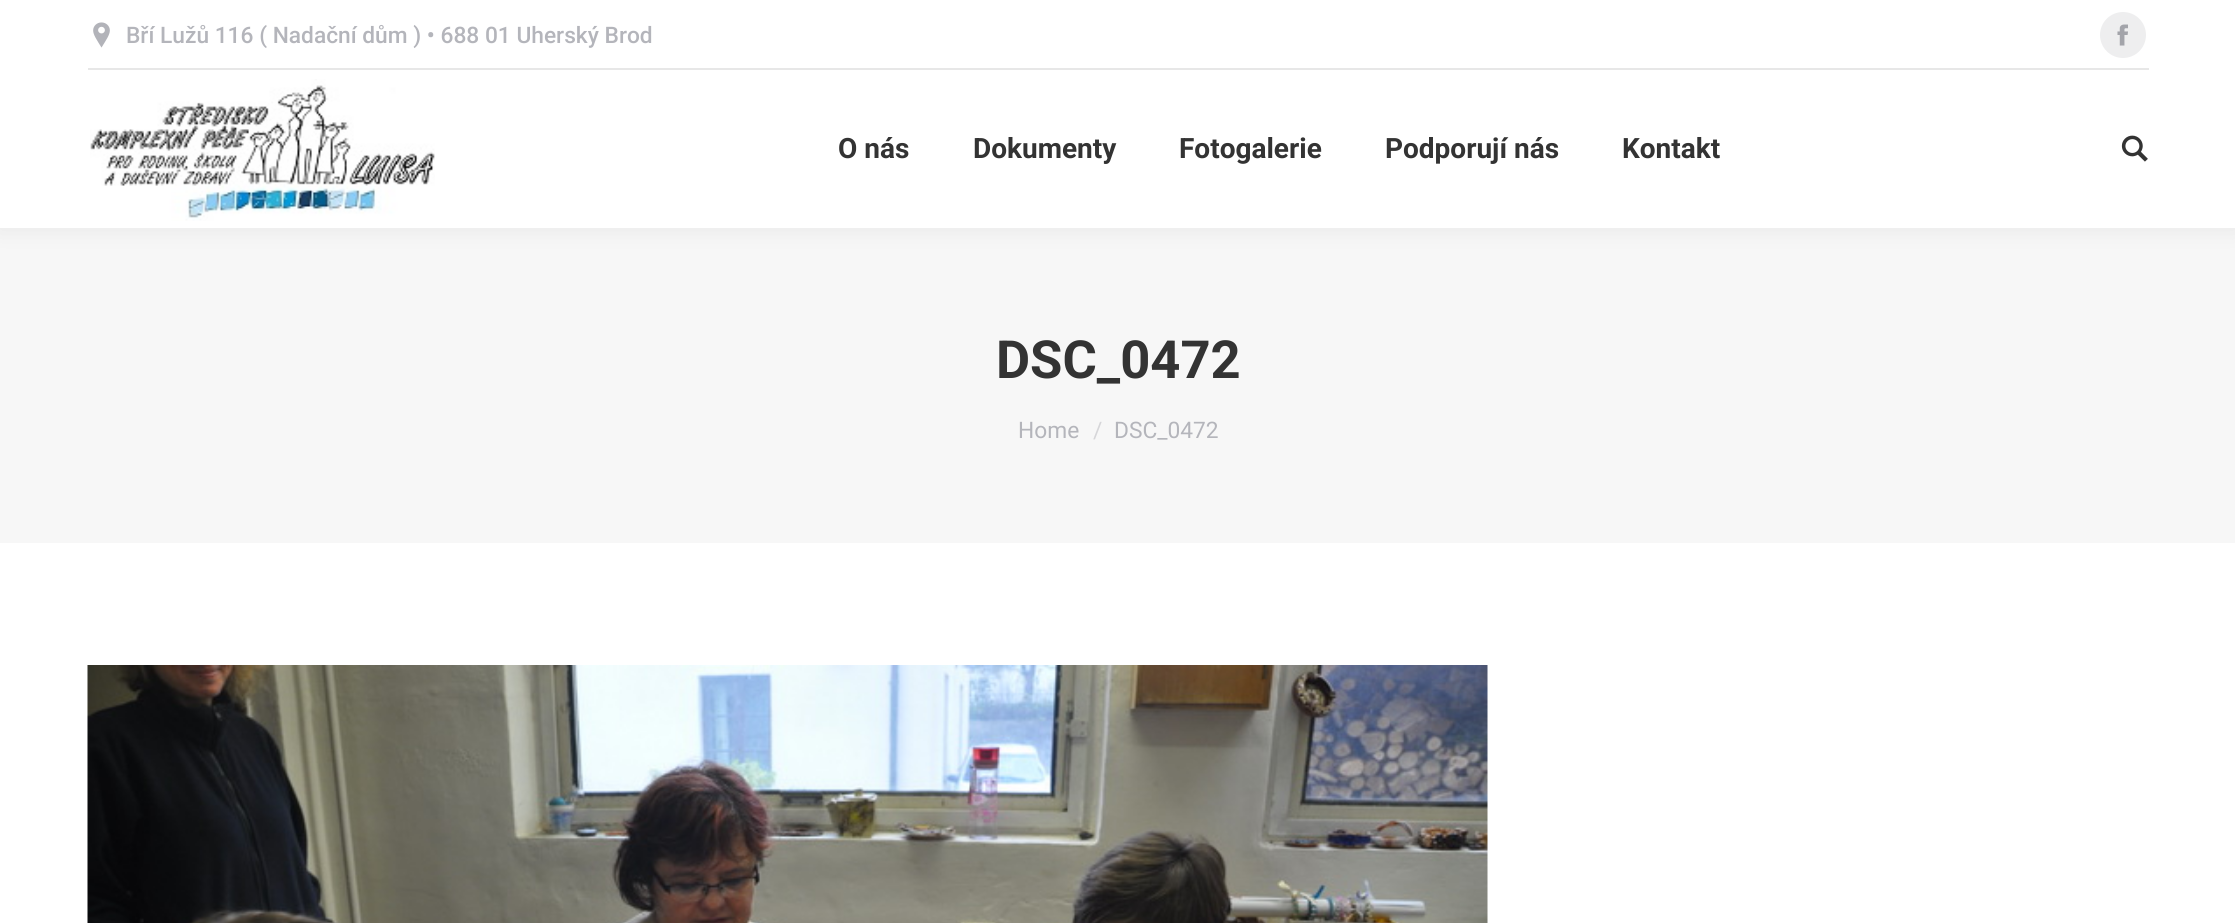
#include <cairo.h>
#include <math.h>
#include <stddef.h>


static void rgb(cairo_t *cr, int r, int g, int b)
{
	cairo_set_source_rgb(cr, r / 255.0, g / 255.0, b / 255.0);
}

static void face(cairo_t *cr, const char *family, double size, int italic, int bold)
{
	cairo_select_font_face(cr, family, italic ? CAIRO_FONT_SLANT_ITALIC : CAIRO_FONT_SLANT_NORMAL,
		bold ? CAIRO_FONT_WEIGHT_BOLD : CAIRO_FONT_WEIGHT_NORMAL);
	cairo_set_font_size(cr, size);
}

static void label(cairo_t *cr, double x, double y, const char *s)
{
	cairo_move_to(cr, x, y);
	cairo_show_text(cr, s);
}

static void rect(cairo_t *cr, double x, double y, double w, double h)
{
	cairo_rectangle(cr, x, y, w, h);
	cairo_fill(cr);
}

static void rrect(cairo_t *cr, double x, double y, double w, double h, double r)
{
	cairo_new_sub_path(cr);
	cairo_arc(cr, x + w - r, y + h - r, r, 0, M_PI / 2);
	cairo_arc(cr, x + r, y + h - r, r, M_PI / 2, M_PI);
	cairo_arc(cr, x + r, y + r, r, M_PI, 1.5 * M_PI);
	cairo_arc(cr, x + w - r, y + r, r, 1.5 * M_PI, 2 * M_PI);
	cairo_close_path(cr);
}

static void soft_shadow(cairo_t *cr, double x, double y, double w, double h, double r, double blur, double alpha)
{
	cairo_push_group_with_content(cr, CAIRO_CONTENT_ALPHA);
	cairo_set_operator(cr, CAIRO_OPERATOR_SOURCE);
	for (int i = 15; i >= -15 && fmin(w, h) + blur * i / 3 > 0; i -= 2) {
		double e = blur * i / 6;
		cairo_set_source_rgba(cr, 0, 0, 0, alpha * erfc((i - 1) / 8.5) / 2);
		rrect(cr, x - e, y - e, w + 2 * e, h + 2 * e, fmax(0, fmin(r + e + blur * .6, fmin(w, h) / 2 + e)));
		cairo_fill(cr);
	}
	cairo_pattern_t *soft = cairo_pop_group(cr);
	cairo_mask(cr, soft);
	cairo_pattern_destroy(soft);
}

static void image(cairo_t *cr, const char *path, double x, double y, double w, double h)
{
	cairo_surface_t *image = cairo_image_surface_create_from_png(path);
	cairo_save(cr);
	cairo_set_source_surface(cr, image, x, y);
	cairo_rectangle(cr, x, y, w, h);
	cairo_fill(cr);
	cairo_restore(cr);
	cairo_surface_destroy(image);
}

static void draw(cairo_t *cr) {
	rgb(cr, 255, 255, 255);
	cairo_paint(cr);
	rgb(cr, 247, 247, 247);
	rect(cr, 0, 228, 2235, 315);
	rgb(cr, 0, 0, 0);
	soft_shadow(cr, -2, -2, 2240, 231, 0, 13, 0.07);
	rgb(cr, 255, 255, 255);
	rect(cr, 0, 0, 2235, 228);
	image(cr, "image0.png", 93, 22, 17, 26);
	face(cr, "Roboto Medium", 22.75, 0, 0);
	rgb(cr, 180, 181, 187);
	label(cr, 126, 43, "Bří Lužů 116 ( Nadační dům ) • 688 01 Uherský Brod");
	rgb(cr, 238, 238, 239);
	cairo_new_path(cr);
	cairo_arc(cr, 2123, 35, 23, 0, 2 * M_PI);
	cairo_fill(cr);
	image(cr, "image1.png", 2117, 24, 11, 22);
	rgb(cr, 231, 231, 231);
	rect(cr, 88, 68, 2061, 2);
	image(cr, "image2.png", 90, 79, 345, 142);
	face(cr, "Roboto", 28, 0, 1);
	rgb(cr, 51, 51, 51);
	label(cr, 838, 158, "O nás");
	label(cr, 973, 158, "Dokumenty");
	label(cr, 1179, 158, "Fotogalerie");
	label(cr, 1385, 158, "Podporují nás");
	label(cr, 1622, 158, "Kontakt");
	image(cr, "image3.png", 2121, 135, 27, 27);
	face(cr, "Roboto", 52.5, 0, 1);
	label(cr, 996, 378, "DSC_0472");
	face(cr, "Roboto", 22.75, 0, 0);
	rgb(cr, 180, 181, 187);
	label(cr, 1018, 438, "Home");
	rgb(cr, 214, 214, 217);
	label(cr, 1093, 438, "/");
	rgb(cr, 180, 181, 187);
	label(cr, 1114, 438, "DSC_0472");
	image(cr, "image4.png", 87, 665, 1401, 258);
}

int main(void) {
	cairo_surface_t *surface = cairo_image_surface_create(CAIRO_FORMAT_RGB24, 2235, 923);
	cairo_t *cr = cairo_create(surface);
	cairo_font_options_t *options = cairo_font_options_create();
	cairo_font_options_set_hint_metrics(options, CAIRO_HINT_METRICS_OFF);
	cairo_font_options_set_hint_style(options, CAIRO_HINT_STYLE_NONE);
	cairo_set_font_options(cr, options);
	cairo_set_miter_limit(cr, 4);
	draw(cr);
	cairo_surface_write_to_png(surface, "render.png");
	cairo_font_options_destroy(options);
	cairo_destroy(cr);
	cairo_surface_destroy(surface);
	return 0;
}
